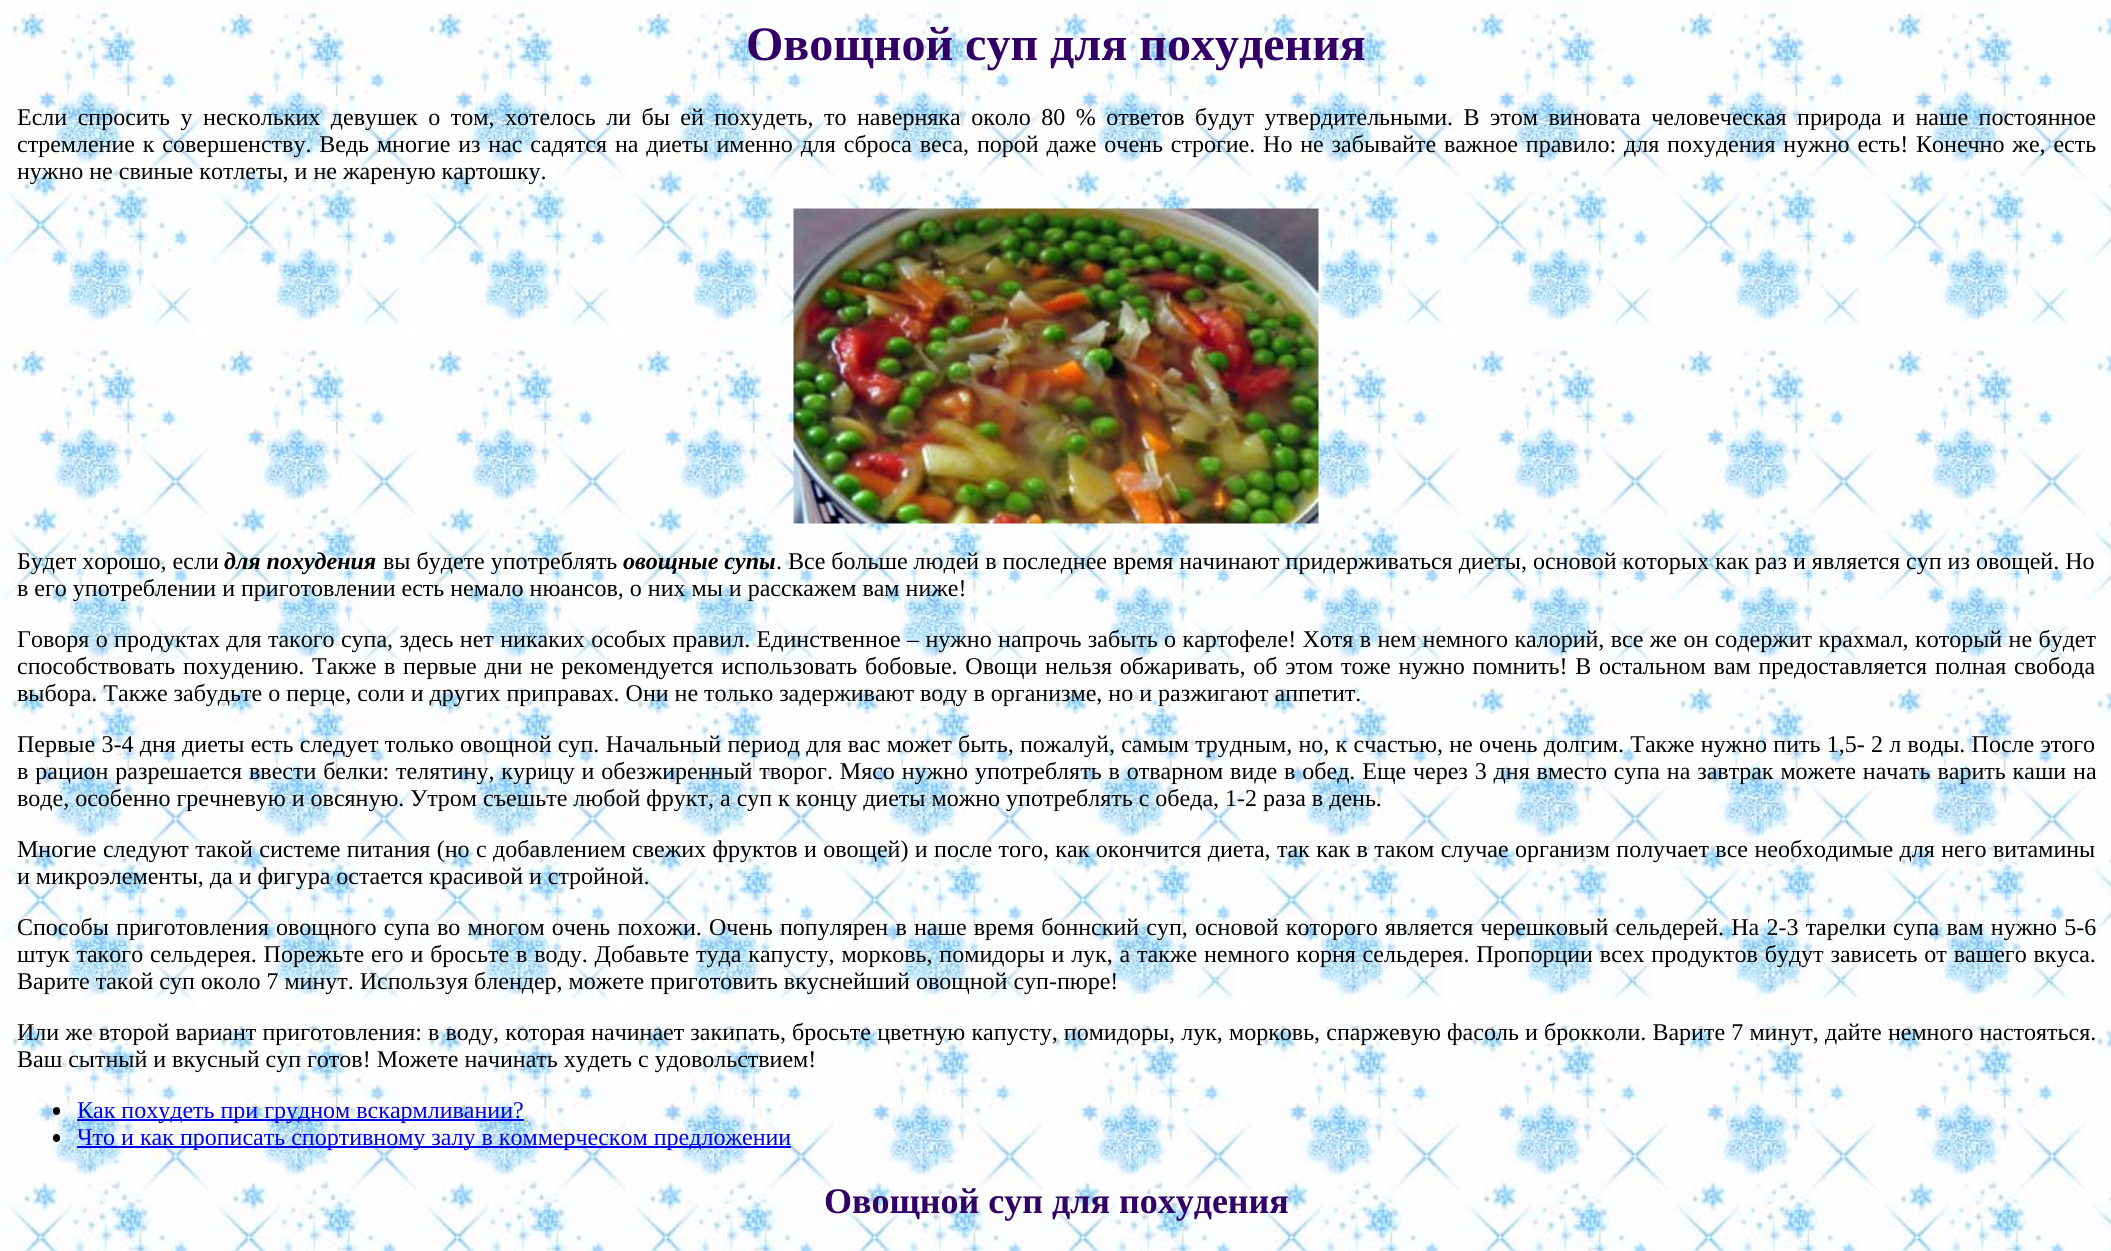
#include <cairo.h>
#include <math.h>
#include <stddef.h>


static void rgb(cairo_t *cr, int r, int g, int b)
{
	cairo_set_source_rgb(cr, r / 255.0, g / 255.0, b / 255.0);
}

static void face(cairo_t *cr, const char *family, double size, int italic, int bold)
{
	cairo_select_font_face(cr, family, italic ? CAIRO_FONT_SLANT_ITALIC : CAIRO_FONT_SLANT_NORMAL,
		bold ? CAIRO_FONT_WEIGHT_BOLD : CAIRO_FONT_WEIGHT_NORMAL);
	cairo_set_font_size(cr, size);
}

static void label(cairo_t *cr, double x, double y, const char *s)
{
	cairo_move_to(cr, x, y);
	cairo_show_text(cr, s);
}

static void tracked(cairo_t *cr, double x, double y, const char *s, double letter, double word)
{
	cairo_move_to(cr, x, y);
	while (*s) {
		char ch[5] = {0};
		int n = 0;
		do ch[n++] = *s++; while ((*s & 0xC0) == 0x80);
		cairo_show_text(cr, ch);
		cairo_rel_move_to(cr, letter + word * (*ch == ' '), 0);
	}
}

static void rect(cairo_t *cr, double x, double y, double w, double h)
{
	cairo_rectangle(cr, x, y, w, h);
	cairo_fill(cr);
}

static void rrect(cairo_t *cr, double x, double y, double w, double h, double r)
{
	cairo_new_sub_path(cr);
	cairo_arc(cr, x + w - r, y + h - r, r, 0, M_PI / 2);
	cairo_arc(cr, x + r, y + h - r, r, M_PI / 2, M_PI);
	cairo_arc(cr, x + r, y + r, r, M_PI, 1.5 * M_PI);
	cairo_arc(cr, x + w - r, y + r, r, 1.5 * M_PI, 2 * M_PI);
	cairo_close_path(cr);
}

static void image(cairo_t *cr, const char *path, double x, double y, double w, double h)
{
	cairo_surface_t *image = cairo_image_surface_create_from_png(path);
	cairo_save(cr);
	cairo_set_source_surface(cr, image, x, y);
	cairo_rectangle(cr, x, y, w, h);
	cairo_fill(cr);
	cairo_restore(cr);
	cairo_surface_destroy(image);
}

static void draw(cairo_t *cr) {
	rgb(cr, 255, 255, 255);
	cairo_paint(cr);
	image(cr, "image0.png", 0, 0, 2111, 1251);
	face(cr, "Liberation Serif", 48, 0, 1);
	rgb(cr, 51, 0, 102);
	label(cr, 746, 60, "Овощной суп для похудения");
	face(cr, "Liberation Serif", 24, 0, 0);
	rgb(cr, 0, 0, 0);
	tracked(cr, 17, 125, "Если спросить у нескольких девушек о том, хотелось ли бы ей похудеть, то наверняка около 80 % ответов будут утвердительными. В этом виновата человеческая природа и наше постоянное", 0, 4.5);
	tracked(cr, 17, 152, "стремление к совершенству. Ведь многие из нас садятся на диеты именно для сброса веса, порой даже очень строгие. Но не забывайте важное правило: для похудения нужно есть! Конечно же, есть", 0, 1.85);
	label(cr, 17, 179, "нужно не свиные котлеты, и не жареную картошку.");
	image(cr, "image1.png", 793, 208, 526, 316);
	label(cr, 17, 569, "Будет хорошо, если");
	face(cr, "Liberation Serif", 24, 1, 1);
	label(cr, 224, 569, "для похудения");
	face(cr, "Liberation Serif", 24, 0, 0);
	label(cr, 383, 569, "вы будете употреблять");
	face(cr, "Liberation Serif", 24, 1, 1);
	label(cr, 623, 569, "овощные супы");
	face(cr, "Liberation Serif", 24, 0, 0);
	label(cr, 776, 569, ". Все больше людей в последнее время начинают придерживаться диеты, основой которых как раз и является суп из овощей. Но");
	label(cr, 17, 596, "в его употреблении и приготовлении есть немало нюансов, о них мы и расскажем вам ниже!");
	tracked(cr, 17, 647, "Говоря о продуктах для такого супа, здесь нет никаких особых правил. Единственное – нужно напрочь забыть о картофеле! Хотя в нем немного калорий, все же он содержит крахмал, который не будет", 0, 0.4);
	tracked(cr, 17, 674, "способствовать похудению. Также в первые дни не рекомендуется использовать бобовые. Овощи нельзя обжаривать, об этом тоже нужно помнить! В остальном вам предоставляется полная свобода", 0, 1.75);
	label(cr, 17, 701, "выбора. Также забудьте о перце, соли и других приправах. Они не только задерживают воду в организме, но и разжигают аппетит.");
	tracked(cr, 17, 752, "Первые 3-4 дня диеты есть следует только овощной суп. Начальный период для вас может быть, пожалуй, самым трудным, но, к счастью, не очень долгим. Также нужно пить 1,5- 2 л воды. После этого", 0, 0.3);
	tracked(cr, 17, 779, "в рацион разрешается ввести белки: телятину, курицу и обезжиренный творог. Мясо нужно употреблять в отварном виде в обед. Еще через 3 дня вместо супа на завтрак можете начать варить каши на", 0, 0.9);
	label(cr, 17, 806, "воде, особенно гречневую и овсяную. Утром съешьте любой фрукт, а суп к концу диеты можно употреблять с обеда, 1-2 раза в день.");
	tracked(cr, 17, 857, "Многие следуют такой системе питания (но с добавлением свежих фруктов и овощей) и после того, как окончится диета, так как в таком случае организм получает все необходимые для него витамины", 0, 0.4);
	label(cr, 17, 884, "и микроэлементы, да и фигура остается красивой и стройной.");
	tracked(cr, 17, 935, "Способы приготовления овощного супа во многом очень похожи. Очень популярен в наше время боннский суп, основой которого является черешковый сельдерей. На 2-3 тарелки супа вам нужно 5-6", 0, 1.2);
	tracked(cr, 17, 962, "штук такого сельдерея. Порежьте его и бросьте в воду. Добавьте туда капусту, морковь, помидоры и лук, а также немного корня сельдерея. Пропорции всех продуктов будут зависеть от вашего вкуса.", 0, 0.85);
	label(cr, 17, 989, "Варите такой суп около 7 минут. Используя блендер, можете приготовить вкуснейший овощной суп-пюре!");
	tracked(cr, 17, 1040, "Или же второй вариант приготовления: в воду, которая начинает закипать, бросьте цветную капусту, помидоры, лук, морковь, спаржевую фасоль и брокколи. Варите 7 минут, дайте немного настояться.", 0, 0.15);
	label(cr, 17, 1067, "Ваш сытный и вкусный суп готов! Можете начинать худеть с удовольствием!");
	rrect(cr, 53, 1107, 7, 8, 3.5);
	cairo_fill(cr);
	rgb(cr, 0, 0, 238);
	rect(cr, 77, 1119, 447, 2);
	label(cr, 77, 1118, "Как похудеть при грудном вскармливании?");
	rgb(cr, 0, 0, 0);
	rrect(cr, 53, 1134, 7, 8, 3.5);
	cairo_fill(cr);
	rgb(cr, 0, 0, 238);
	rect(cr, 77, 1146, 714, 2);
	label(cr, 77, 1145, "Что и как прописать спортивному залу в коммерческом предложении");
	face(cr, "Liberation Serif", 36, 0, 1);
	rgb(cr, 51, 0, 102);
	label(cr, 824, 1213, "Овощной суп для похудения");
}

int main(void) {
	cairo_surface_t *surface = cairo_image_surface_create(CAIRO_FORMAT_RGB24, 2111, 1251);
	cairo_t *cr = cairo_create(surface);
	cairo_font_options_t *options = cairo_font_options_create();
	cairo_font_options_set_hint_metrics(options, CAIRO_HINT_METRICS_OFF);
	cairo_font_options_set_hint_style(options, CAIRO_HINT_STYLE_NONE);
	cairo_set_font_options(cr, options);
	cairo_set_miter_limit(cr, 4);
	draw(cr);
	cairo_surface_write_to_png(surface, "render.png");
	cairo_font_options_destroy(options);
	cairo_destroy(cr);
	cairo_surface_destroy(surface);
	return 0;
}
